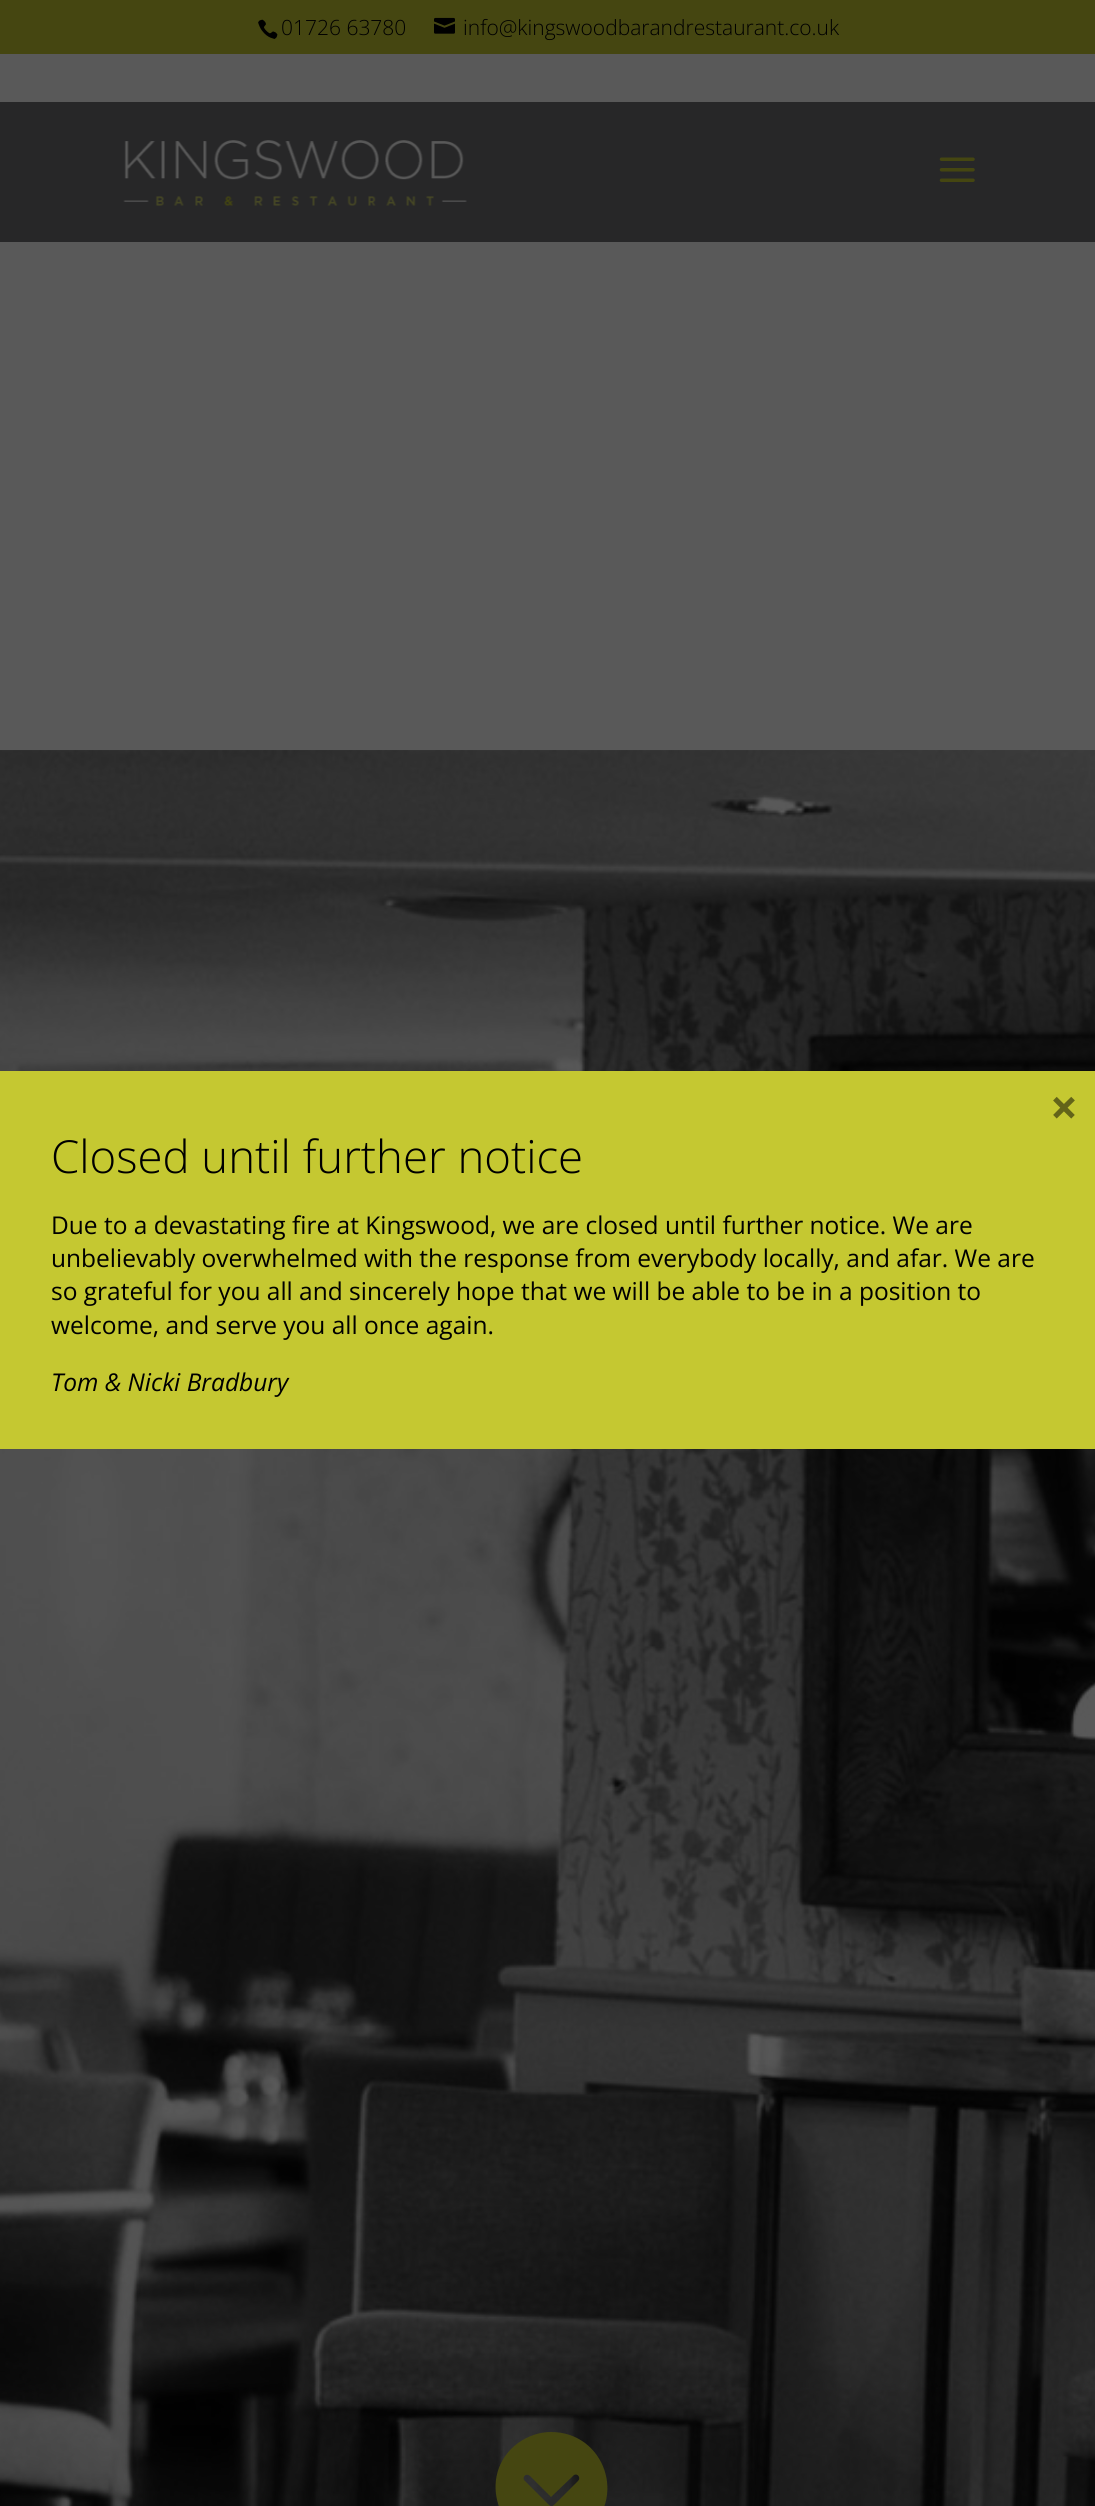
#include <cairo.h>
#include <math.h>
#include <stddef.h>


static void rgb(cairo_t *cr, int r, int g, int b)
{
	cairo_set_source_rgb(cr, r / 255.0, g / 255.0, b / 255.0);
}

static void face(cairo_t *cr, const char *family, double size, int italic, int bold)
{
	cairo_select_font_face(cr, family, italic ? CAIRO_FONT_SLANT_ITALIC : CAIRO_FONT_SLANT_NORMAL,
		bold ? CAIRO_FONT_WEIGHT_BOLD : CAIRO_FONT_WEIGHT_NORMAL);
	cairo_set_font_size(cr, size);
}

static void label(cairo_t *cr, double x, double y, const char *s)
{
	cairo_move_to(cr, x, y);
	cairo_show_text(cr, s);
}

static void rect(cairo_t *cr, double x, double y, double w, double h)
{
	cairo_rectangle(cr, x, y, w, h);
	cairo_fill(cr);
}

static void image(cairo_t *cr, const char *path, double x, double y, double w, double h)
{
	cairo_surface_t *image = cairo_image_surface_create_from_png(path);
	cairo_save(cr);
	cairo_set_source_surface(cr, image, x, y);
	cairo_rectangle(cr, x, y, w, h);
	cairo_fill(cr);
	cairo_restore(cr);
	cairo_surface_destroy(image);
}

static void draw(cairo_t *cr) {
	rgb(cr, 89, 89, 89);
	cairo_paint(cr);
	rgb(cr, 69, 70, 17);
	rect(cr, 0, 0, 1095, 54);
	image(cr, "image0.png", 258, 19, 20, 20);
	face(cr, "Open Sans Light", 21, 0, 0);
	rgb(cr, 0, 0, 0);
	label(cr, 281, 35, "01726 63780");
	image(cr, "image1.png", 434, 17, 21, 17);
	label(cr, 463, 35, "info@kingswoodbarandrestaurant.co.uk");
	rgb(cr, 39, 39, 40);
	rect(cr, 0, 102, 1095, 140);
	image(cr, "image2.png", 123, 140, 344, 66);
	image(cr, "image3.png", 939, 157, 36, 25);
	image(cr, "image4.png", 0, 750, 1095, 1756);
	rgb(cr, 69, 70, 17);
	cairo_new_path(cr);
	cairo_move_to(cr, 551, 2432);
	cairo_curve_to(cr, 539, 2432, 528, 2436, 518, 2443);
	cairo_curve_to(cr, 475, 2475, 498, 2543, 551, 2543);
	cairo_curve_to(cr, 563, 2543, 575, 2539, 585, 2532);
	cairo_curve_to(cr, 628, 2500, 605, 2432, 551, 2432);
	cairo_close_path(cr);
	cairo_move_to(cr, 578, 2481);
	cairo_line_to(cr, 558, 2501);
	cairo_curve_to(cr, 551, 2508, 552, 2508, 545, 2501);
	cairo_line_to(cr, 524, 2480);
	cairo_curve_to(cr, 522, 2476, 527, 2473, 530, 2476);
	cairo_line_to(cr, 551, 2497);
	cairo_line_to(cr, 574, 2475);
	cairo_curve_to(cr, 578, 2473, 581, 2478, 578, 2481);
	cairo_close_path(cr);
	cairo_fill(cr);
	rgb(cr, 197, 200, 49);
	rect(cr, 0, 1071, 1095, 378);
	face(cr, "Open Sans", 49, 0, 1);
	rgb(cr, 99, 100, 25);
	label(cr, 1050, 1125, "×");
	face(cr, "Open Sans Light", 45.5, 0, 0);
	rgb(cr, 0, 0, 0);
	label(cr, 51, 1173, "Closed until further notice");
	face(cr, "Open Sans", 24.5, 0, 0);
	label(cr, 51, 1234, "Due to a devastating fire at Kingswood, we are closed until further notice. We are");
	label(cr, 51, 1267, "unbelievably overwhelmed with the response from everybody locally, and afar. We are");
	label(cr, 51, 1300, "so grateful for you all and sincerely hope that we will be able to be in a position to");
	label(cr, 51, 1334, "welcome, and serve you all once again.");
	face(cr, "Open Sans", 24.5, 1, 0);
	label(cr, 51, 1391, "Tom & Nicki Bradbury");
}

int main(void) {
	cairo_surface_t *surface = cairo_image_surface_create(CAIRO_FORMAT_RGB24, 1095, 2506);
	cairo_t *cr = cairo_create(surface);
	cairo_font_options_t *options = cairo_font_options_create();
	cairo_font_options_set_hint_metrics(options, CAIRO_HINT_METRICS_OFF);
	cairo_font_options_set_hint_style(options, CAIRO_HINT_STYLE_NONE);
	cairo_set_font_options(cr, options);
	cairo_set_miter_limit(cr, 4);
	draw(cr);
	cairo_surface_write_to_png(surface, "render.png");
	cairo_font_options_destroy(options);
	cairo_destroy(cr);
	cairo_surface_destroy(surface);
	return 0;
}
